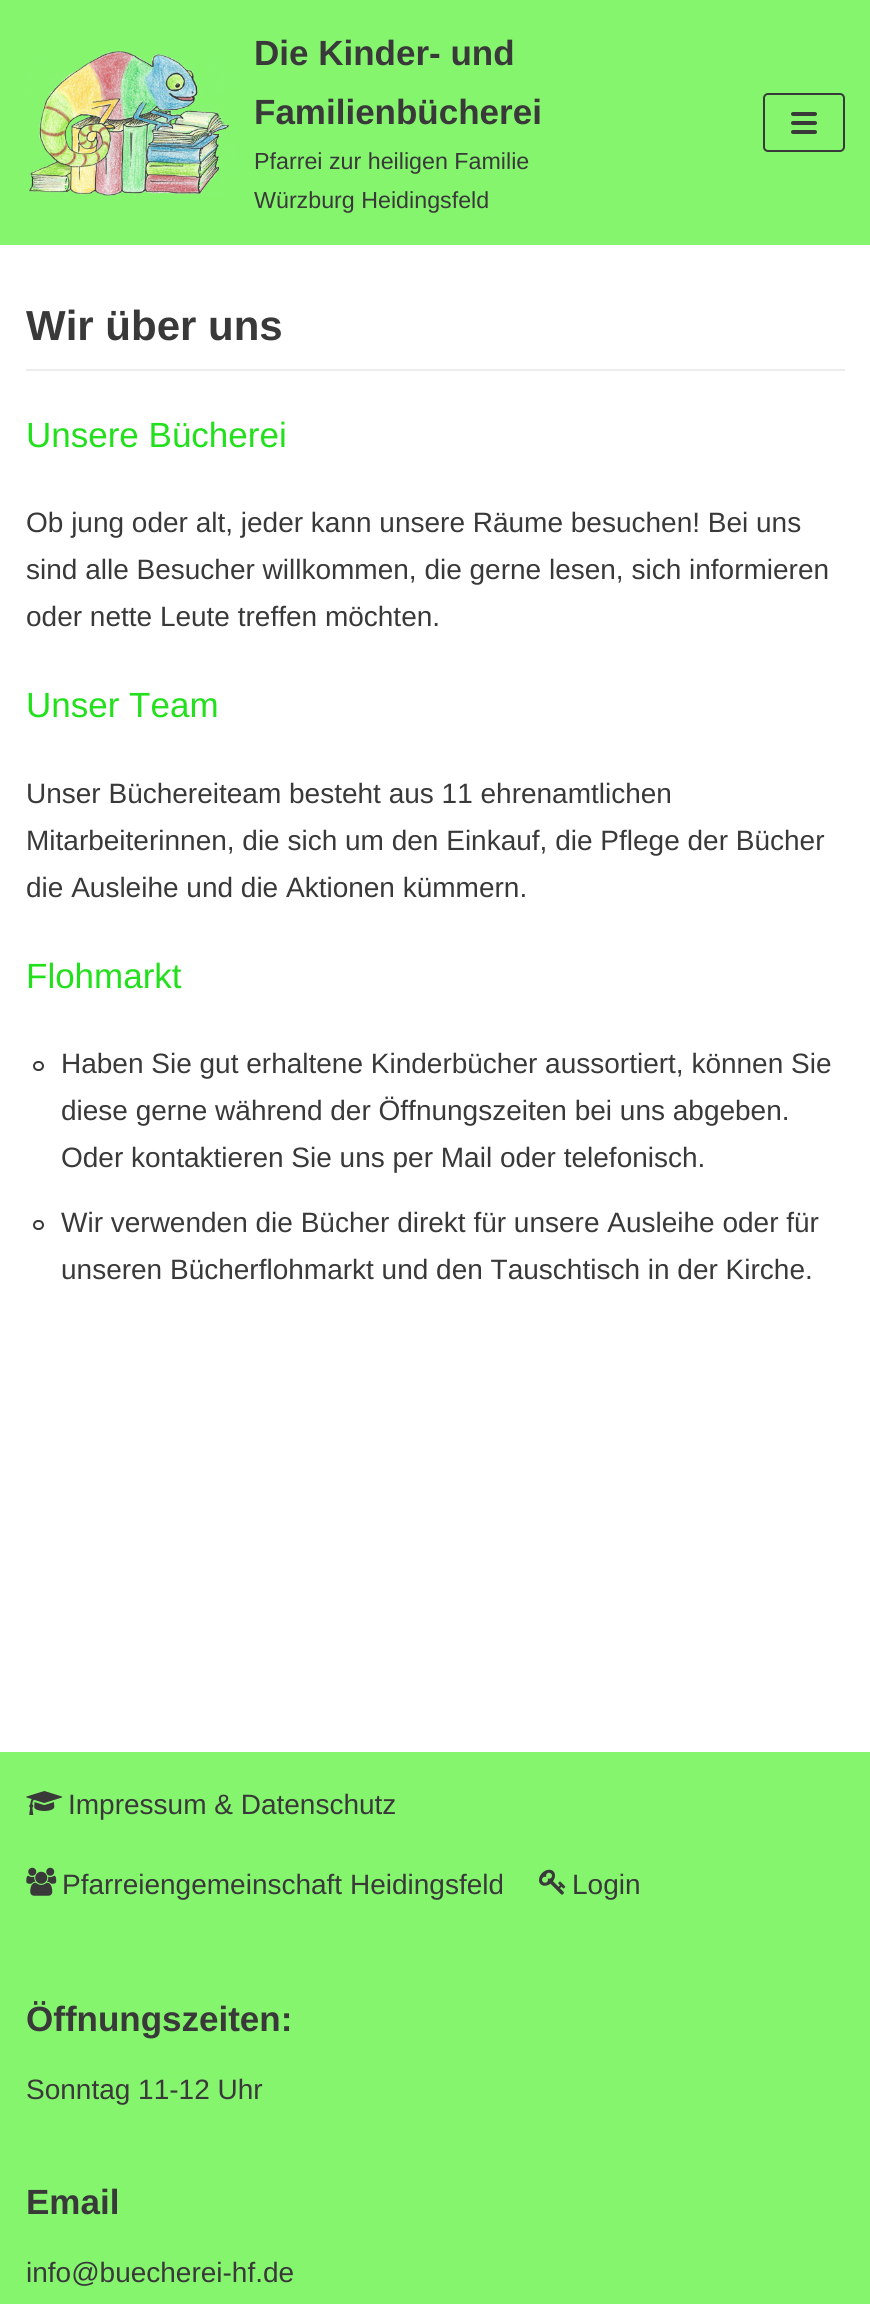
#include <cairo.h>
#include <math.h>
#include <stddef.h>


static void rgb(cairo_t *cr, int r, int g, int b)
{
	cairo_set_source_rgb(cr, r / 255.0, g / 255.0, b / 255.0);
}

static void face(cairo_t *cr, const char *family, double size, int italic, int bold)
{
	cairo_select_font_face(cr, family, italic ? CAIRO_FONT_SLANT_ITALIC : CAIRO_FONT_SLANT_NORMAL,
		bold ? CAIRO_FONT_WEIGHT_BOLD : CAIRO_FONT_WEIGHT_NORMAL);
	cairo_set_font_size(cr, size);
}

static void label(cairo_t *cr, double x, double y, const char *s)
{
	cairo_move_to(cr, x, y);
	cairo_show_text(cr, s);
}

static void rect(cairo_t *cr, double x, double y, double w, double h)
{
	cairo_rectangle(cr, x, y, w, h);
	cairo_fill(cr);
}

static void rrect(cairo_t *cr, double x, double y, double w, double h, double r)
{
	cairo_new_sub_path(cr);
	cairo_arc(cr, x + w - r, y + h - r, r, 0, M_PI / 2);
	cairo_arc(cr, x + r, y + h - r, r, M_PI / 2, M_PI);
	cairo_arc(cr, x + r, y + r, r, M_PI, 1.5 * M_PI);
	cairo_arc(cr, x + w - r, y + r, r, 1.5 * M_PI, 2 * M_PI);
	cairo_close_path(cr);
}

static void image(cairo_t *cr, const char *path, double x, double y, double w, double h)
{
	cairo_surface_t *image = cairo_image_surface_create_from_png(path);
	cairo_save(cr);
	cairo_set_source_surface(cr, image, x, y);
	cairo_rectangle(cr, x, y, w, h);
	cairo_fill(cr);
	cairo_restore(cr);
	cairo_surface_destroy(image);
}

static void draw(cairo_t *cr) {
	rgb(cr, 255, 255, 255);
	cairo_paint(cr);
	rgb(cr, 133, 245, 110);
	rect(cr, 0, 0, 870, 245);
	image(cr, "image0.png", 26, 49, 210, 147);
	face(cr, "Liberation Sans", 35, 0, 1);
	rgb(cr, 57, 57, 57);
	label(cr, 254, 65, "Die Kinder- und");
	label(cr, 254, 124, "Familienbücherei");
	face(cr, "Liberation Sans", 23.25, 0, 0);
	label(cr, 254, 169, "Pfarrei zur heiligen Familie");
	label(cr, 254, 208, "Würzburg Heidingsfeld");
	rrect(cr, 764, 94, 80, 57, 4);
	cairo_stroke(cr);
	rrect(cr, 791, 112, 26, 4, 2);
	cairo_fill(cr);
	rrect(cr, 791, 121, 26, 4, 2);
	cairo_fill(cr);
	rrect(cr, 791, 130, 26, 4, 2);
	cairo_fill(cr);
	rgb(cr, 237, 237, 237);
	rect(cr, 26, 369, 819, 2);
	face(cr, "Liberation Sans", 42, 0, 1);
	rgb(cr, 57, 57, 57);
	label(cr, 26, 340, "Wir über uns");
	face(cr, "Liberation Sans", 35, 0, 0);
	rgb(cr, 34, 224, 28);
	label(cr, 26, 447, "Unsere Bücherei");
	face(cr, "Liberation Sans", 28, 0, 0);
	rgb(cr, 57, 57, 57);
	label(cr, 26, 532, "Ob jung oder alt, jeder kann unsere Räume besuchen! Bei uns");
	label(cr, 26, 579, "sind alle Besucher willkommen, die gerne lesen, sich informieren");
	label(cr, 26, 626, "oder nette Leute treffen möchten.");
	face(cr, "Liberation Sans", 35, 0, 0);
	rgb(cr, 34, 224, 28);
	label(cr, 26, 717, "Unser Team");
	face(cr, "Liberation Sans", 28, 0, 0);
	rgb(cr, 57, 57, 57);
	label(cr, 26, 803, "Unser Büchereiteam besteht aus 11 ehrenamtlichen");
	label(cr, 26, 850, "Mitarbeiterinnen, die sich um den Einkauf, die Pflege der Bücher");
	label(cr, 26, 897, "die Ausleihe und die Aktionen kümmern.");
	face(cr, "Liberation Sans", 35, 0, 0);
	rgb(cr, 34, 224, 28);
	label(cr, 26, 988, "Flohmarkt");
	rrect(cr, 34, 1062, 9, 8, 4);
	rgb(cr, 57, 57, 57);
	cairo_stroke(cr);
	face(cr, "Liberation Sans", 28, 0, 0);
	label(cr, 61, 1073, "Haben Sie gut erhaltene Kinderbücher aussortiert, können Sie");
	label(cr, 61, 1120, "diese gerne während der Öffnungszeiten bei uns abgeben.");
	label(cr, 61, 1167, "Oder kontaktieren Sie uns per Mail oder telefonisch.");
	rrect(cr, 34, 1221, 9, 8, 4);
	cairo_stroke(cr);
	label(cr, 61, 1232, "Wir verwenden die Bücher direkt für unsere Ausleihe oder für");
	label(cr, 61, 1279, "unseren Bücherflohmarkt und den Tauschtisch in der Kirche.");
	rgb(cr, 133, 245, 110);
	rect(cr, 0, 1752, 870, 552);
	image(cr, "image1.png", 26, 1791, 37, 24);
	rgb(cr, 57, 57, 57);
	label(cr, 68, 1814, "Impressum & Datenschutz");
	image(cr, "image2.png", 26, 1867, 31, 29);
	label(cr, 62, 1894, "Pfarreiengemeinschaft Heidingsfeld");
	image(cr, "image3.png", 539, 1869, 27, 26);
	label(cr, 572, 1894, "Login");
	face(cr, "Liberation Sans", 35, 0, 1);
	label(cr, 26, 2031, "Öffnungszeiten:");
	face(cr, "Liberation Sans", 28, 0, 0);
	label(cr, 26, 2099, "Sonntag 11-12 Uhr");
	face(cr, "Liberation Sans", 35, 0, 1);
	label(cr, 26, 2214, "Email");
	face(cr, "Liberation Sans", 28, 0, 0);
	label(cr, 26, 2282, "info@buecherei-hf.de");
}

int main(void) {
	cairo_surface_t *surface = cairo_image_surface_create(CAIRO_FORMAT_RGB24, 870, 2304);
	cairo_t *cr = cairo_create(surface);
	cairo_font_options_t *options = cairo_font_options_create();
	cairo_font_options_set_hint_metrics(options, CAIRO_HINT_METRICS_OFF);
	cairo_font_options_set_hint_style(options, CAIRO_HINT_STYLE_NONE);
	cairo_set_font_options(cr, options);
	cairo_set_miter_limit(cr, 4);
	draw(cr);
	cairo_surface_write_to_png(surface, "render.png");
	cairo_font_options_destroy(options);
	cairo_destroy(cr);
	cairo_surface_destroy(surface);
	return 0;
}
